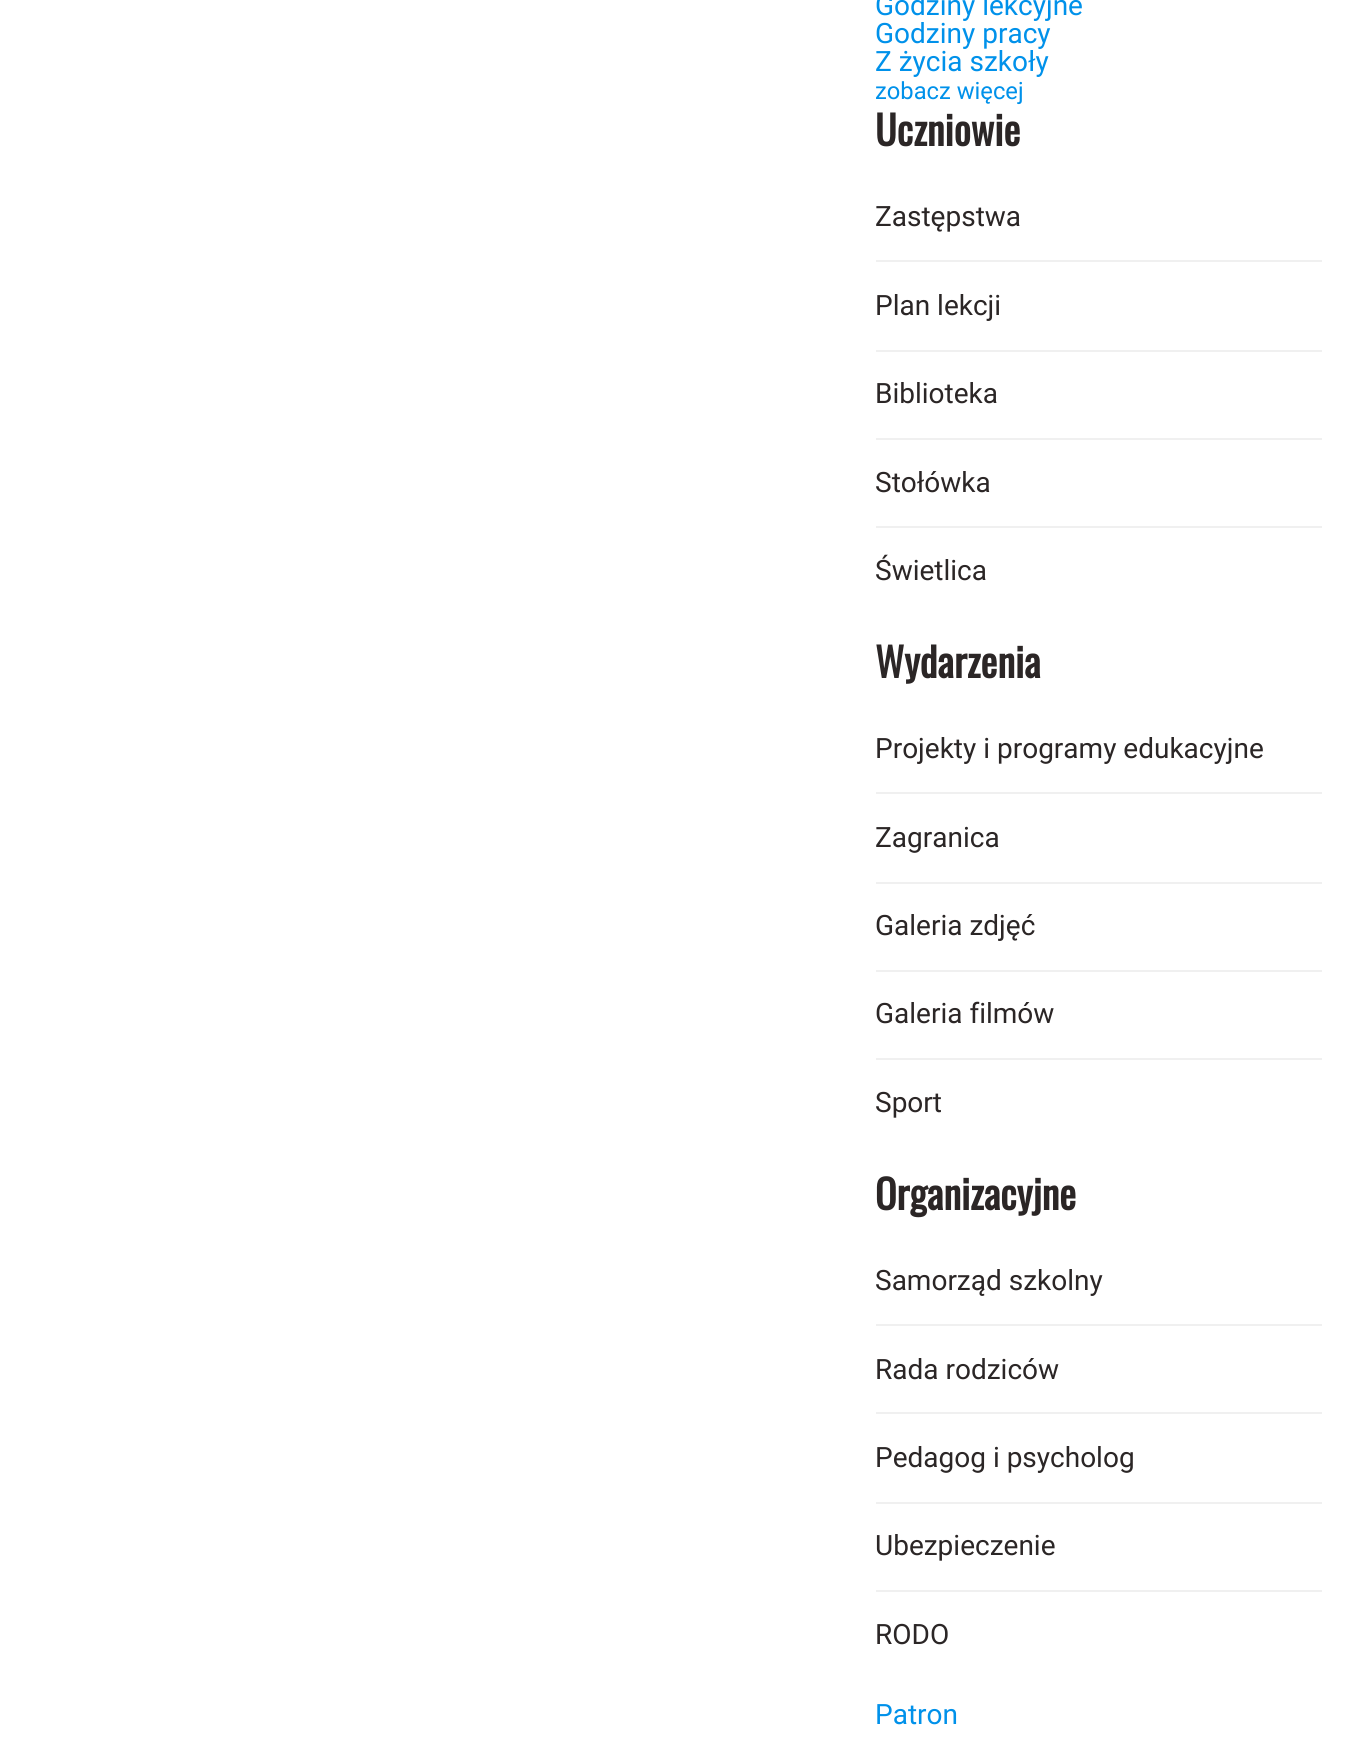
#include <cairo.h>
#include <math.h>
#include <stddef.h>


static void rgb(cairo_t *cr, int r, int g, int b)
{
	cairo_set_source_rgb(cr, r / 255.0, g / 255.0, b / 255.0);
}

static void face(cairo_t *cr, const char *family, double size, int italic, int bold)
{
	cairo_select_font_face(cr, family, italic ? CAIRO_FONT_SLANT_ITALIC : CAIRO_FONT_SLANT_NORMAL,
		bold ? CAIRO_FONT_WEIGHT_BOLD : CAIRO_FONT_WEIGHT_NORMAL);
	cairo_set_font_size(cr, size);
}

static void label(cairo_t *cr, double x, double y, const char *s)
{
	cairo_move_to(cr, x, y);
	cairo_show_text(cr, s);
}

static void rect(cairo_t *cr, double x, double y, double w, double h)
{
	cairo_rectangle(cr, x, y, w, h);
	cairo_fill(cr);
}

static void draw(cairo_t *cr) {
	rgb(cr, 255, 255, 255);
	cairo_paint(cr);
	face(cr, "Roboto", 28, 0, 0);
	rgb(cr, 0, 145, 234);
	label(cr, 875, 15, "Godziny lekcyjne");
	label(cr, 875, 43, "Godziny pracy");
	label(cr, 875, 71, "Z życia szkoły");
	face(cr, "Roboto", 23.75, 0, 0);
	label(cr, 875, 99, "zobacz więcej");
	face(cr, "Oswald", 40, 0, 1);
	rgb(cr, 43, 38, 38);
	label(cr, 875, 146, "Uczniowie");
	face(cr, "Roboto", 28, 0, 0);
	label(cr, 875, 226, "Zastępstwa");
	rgb(cr, 240, 240, 240);
	rect(cr, 876, 260, 446, 2);
	rgb(cr, 43, 38, 38);
	label(cr, 875, 315, "Plan lekcji");
	rgb(cr, 240, 240, 240);
	rect(cr, 876, 350, 446, 2);
	rgb(cr, 43, 38, 38);
	label(cr, 875, 403, "Biblioteka");
	rgb(cr, 240, 240, 240);
	rect(cr, 876, 438, 446, 2);
	rgb(cr, 43, 38, 38);
	label(cr, 875, 492, "Stołówka");
	rgb(cr, 240, 240, 240);
	rect(cr, 876, 526, 446, 2);
	rgb(cr, 43, 38, 38);
	label(cr, 875, 580, "Świetlica");
	face(cr, "Oswald", 40, 0, 1);
	label(cr, 875, 678, "Wydarzenia");
	face(cr, "Roboto", 28, 0, 0);
	label(cr, 875, 758, "Projekty i programy edukacyjne");
	rgb(cr, 240, 240, 240);
	rect(cr, 876, 792, 446, 2);
	rgb(cr, 43, 38, 38);
	label(cr, 875, 847, "Zagranica");
	rgb(cr, 240, 240, 240);
	rect(cr, 876, 882, 446, 2);
	rgb(cr, 43, 38, 38);
	label(cr, 875, 935, "Galeria zdjęć");
	rgb(cr, 240, 240, 240);
	rect(cr, 876, 970, 446, 2);
	rgb(cr, 43, 38, 38);
	label(cr, 875, 1023, "Galeria filmów");
	rgb(cr, 240, 240, 240);
	rect(cr, 876, 1058, 446, 2);
	rgb(cr, 43, 38, 38);
	label(cr, 875, 1112, "Sport");
	face(cr, "Oswald", 40, 0, 1);
	label(cr, 875, 1210, "Organizacyjne");
	face(cr, "Roboto", 28, 0, 0);
	label(cr, 875, 1290, "Samorząd szkolny");
	rgb(cr, 240, 240, 240);
	rect(cr, 876, 1324, 446, 2);
	rgb(cr, 43, 38, 38);
	label(cr, 875, 1379, "Rada rodziców");
	rgb(cr, 240, 240, 240);
	rect(cr, 876, 1412, 446, 2);
	rgb(cr, 43, 38, 38);
	label(cr, 875, 1467, "Pedagog i psycholog");
	rgb(cr, 240, 240, 240);
	rect(cr, 876, 1502, 446, 2);
	rgb(cr, 43, 38, 38);
	label(cr, 875, 1555, "Ubezpieczenie");
	rgb(cr, 240, 240, 240);
	rect(cr, 876, 1590, 446, 2);
	rgb(cr, 43, 38, 38);
	label(cr, 875, 1644, "RODO");
	rgb(cr, 0, 145, 234);
	label(cr, 875, 1724, "Patron");
}

int main(void) {
	cairo_surface_t *surface = cairo_image_surface_create(CAIRO_FORMAT_RGB24, 1352, 1747);
	cairo_t *cr = cairo_create(surface);
	cairo_font_options_t *options = cairo_font_options_create();
	cairo_font_options_set_hint_metrics(options, CAIRO_HINT_METRICS_OFF);
	cairo_font_options_set_hint_style(options, CAIRO_HINT_STYLE_NONE);
	cairo_set_font_options(cr, options);
	cairo_set_miter_limit(cr, 4);
	draw(cr);
	cairo_surface_write_to_png(surface, "render.png");
	cairo_font_options_destroy(options);
	cairo_destroy(cr);
	cairo_surface_destroy(surface);
	return 0;
}
